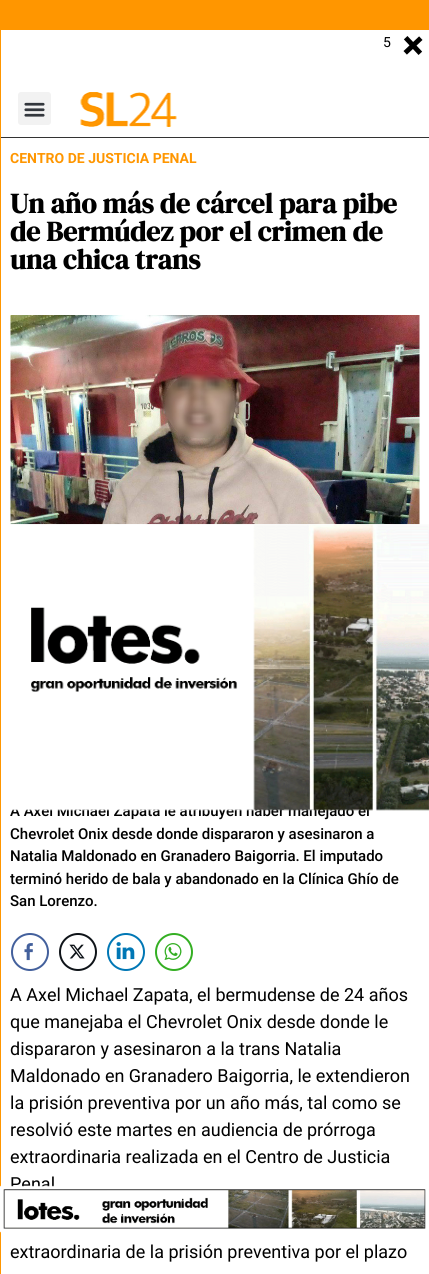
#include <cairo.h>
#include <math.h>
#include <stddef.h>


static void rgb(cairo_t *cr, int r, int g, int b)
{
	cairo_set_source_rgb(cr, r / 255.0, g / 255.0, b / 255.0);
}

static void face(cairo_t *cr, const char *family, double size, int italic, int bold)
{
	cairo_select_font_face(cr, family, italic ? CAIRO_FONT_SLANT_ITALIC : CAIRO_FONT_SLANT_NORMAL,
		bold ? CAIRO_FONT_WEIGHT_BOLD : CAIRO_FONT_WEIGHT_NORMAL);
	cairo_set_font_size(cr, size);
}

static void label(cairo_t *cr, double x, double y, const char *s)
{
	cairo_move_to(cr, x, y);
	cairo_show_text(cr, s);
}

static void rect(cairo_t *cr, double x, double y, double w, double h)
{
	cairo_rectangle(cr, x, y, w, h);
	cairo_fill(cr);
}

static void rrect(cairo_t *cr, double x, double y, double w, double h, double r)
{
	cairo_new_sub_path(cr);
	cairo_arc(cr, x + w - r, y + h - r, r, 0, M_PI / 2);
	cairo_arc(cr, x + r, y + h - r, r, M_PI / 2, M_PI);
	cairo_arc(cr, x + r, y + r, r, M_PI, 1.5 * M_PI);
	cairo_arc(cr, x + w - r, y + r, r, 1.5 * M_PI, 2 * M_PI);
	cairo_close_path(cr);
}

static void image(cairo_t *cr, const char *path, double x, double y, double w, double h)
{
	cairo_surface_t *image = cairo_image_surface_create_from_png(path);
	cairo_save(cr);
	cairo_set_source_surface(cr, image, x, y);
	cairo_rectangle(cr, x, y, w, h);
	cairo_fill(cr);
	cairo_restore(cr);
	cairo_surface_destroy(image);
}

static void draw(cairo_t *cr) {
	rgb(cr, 255, 150, 0);
	cairo_paint(cr);
	rgb(cr, 255, 255, 255);
	rect(cr, 1, 30, 428, 1244);
	face(cr, "Roboto", 14, 0, 0);
	rgb(cr, 0, 0, 0);
	label(cr, 383, 47, "5");
	image(cr, "image0.png", 403, 36, 20, 19);
	image(cr, "image4.png", 10, 315, 410, 210);
	face(cr, "Roboto Medium", 15, 0, 0);
	label(cr, 10, 816, "A Axel Michael Zapata le atribuyen haber manejado el");
	image(cr, "image1.png", 10, 524, 419, 287);
	rgb(cr, 51, 51, 51);
	rect(cr, 1, 137, 428, 1);
	rgb(cr, 242, 242, 242);
	rrect(cr, 18, 92, 33, 33, 3);
	cairo_fill(cr);
	image(cr, "image2.png", 24, 102, 21, 15);
	image(cr, "image3.png", 80, 92, 97, 35);
	face(cr, "Roboto", 14, 0, 1);
	rgb(cr, 255, 150, 0);
	label(cr, 10, 163, "CENTRO DE JUSTICIA PENAL");
	face(cr, "DM Serif Display", 28, 0, 1);
	rgb(cr, 0, 0, 0);
	label(cr, 10, 213, "Un año más de cárcel para pibe");
	label(cr, 10, 241, "de Bermúdez por el crimen de");
	label(cr, 10, 269, "una chica trans");
	face(cr, "Roboto Medium", 15, 0, 0);
	label(cr, 10, 839, "Chevrolet Onix desde donde dispararon y asesinaron a");
	label(cr, 10, 861, "Natalia Maldonado en Granadero Baigorria. El imputado");
	label(cr, 10, 884, "terminó herido de bala y abandonado en la Clínica Ghío de");
	label(cr, 10, 906, "San Lorenzo.");
	cairo_new_path(cr);
	cairo_arc(cr, 30, 952, 18, 0, 2 * M_PI);
	rgb(cr, 67, 96, 156);
	cairo_stroke(cr);
	image(cr, "image5.png", 24, 943, 9, 18);
	cairo_arc(cr, 78, 952, 18, 0, 2 * M_PI);
	rgb(cr, 15, 20, 25);
	cairo_stroke(cr);
	image(cr, "image6.png", 69, 944, 16, 15);
	cairo_arc(cr, 126, 952, 18, 0, 2 * M_PI);
	rgb(cr, 0, 119, 181);
	cairo_stroke(cr);
	image(cr, "image7.png", 116, 942, 19, 18);
	cairo_arc(cr, 174, 952, 18, 0, 2 * M_PI);
	rgb(cr, 52, 175, 35);
	cairo_stroke(cr);
	image(cr, "image8.png", 164, 943, 18, 17);
	face(cr, "Roboto", 18, 0, 0);
	rgb(cr, 0, 0, 0);
	label(cr, 10, 1001, "A Axel Michael Zapata, el bermudense de 24 años");
	label(cr, 10, 1028, "que manejaba el Chevrolet Onix desde donde le");
	label(cr, 10, 1055, "dispararon y asesinaron a la trans Natalia");
	label(cr, 10, 1082, "Maldonado en Granadero Baigorria, le extendieron");
	label(cr, 10, 1109, "la prisión preventiva por un año más, tal como se");
	label(cr, 10, 1136, "resolvió este martes en audiencia de prórroga");
	label(cr, 10, 1163, "extraordinaria realizada en el Centro de Justicia");
	label(cr, 10, 1190, "Penal");
	label(cr, 10, 1258, "extraordinaria de la prisión preventiva por el plazo");
	image(cr, "image9.png", 0, 1185, 426, 48);
}

int main(void) {
	cairo_surface_t *surface = cairo_image_surface_create(CAIRO_FORMAT_RGB24, 429, 1274);
	cairo_t *cr = cairo_create(surface);
	cairo_font_options_t *options = cairo_font_options_create();
	cairo_font_options_set_hint_metrics(options, CAIRO_HINT_METRICS_OFF);
	cairo_font_options_set_hint_style(options, CAIRO_HINT_STYLE_NONE);
	cairo_set_font_options(cr, options);
	cairo_set_miter_limit(cr, 4);
	draw(cr);
	cairo_surface_write_to_png(surface, "render.png");
	cairo_font_options_destroy(options);
	cairo_destroy(cr);
	cairo_surface_destroy(surface);
	return 0;
}
